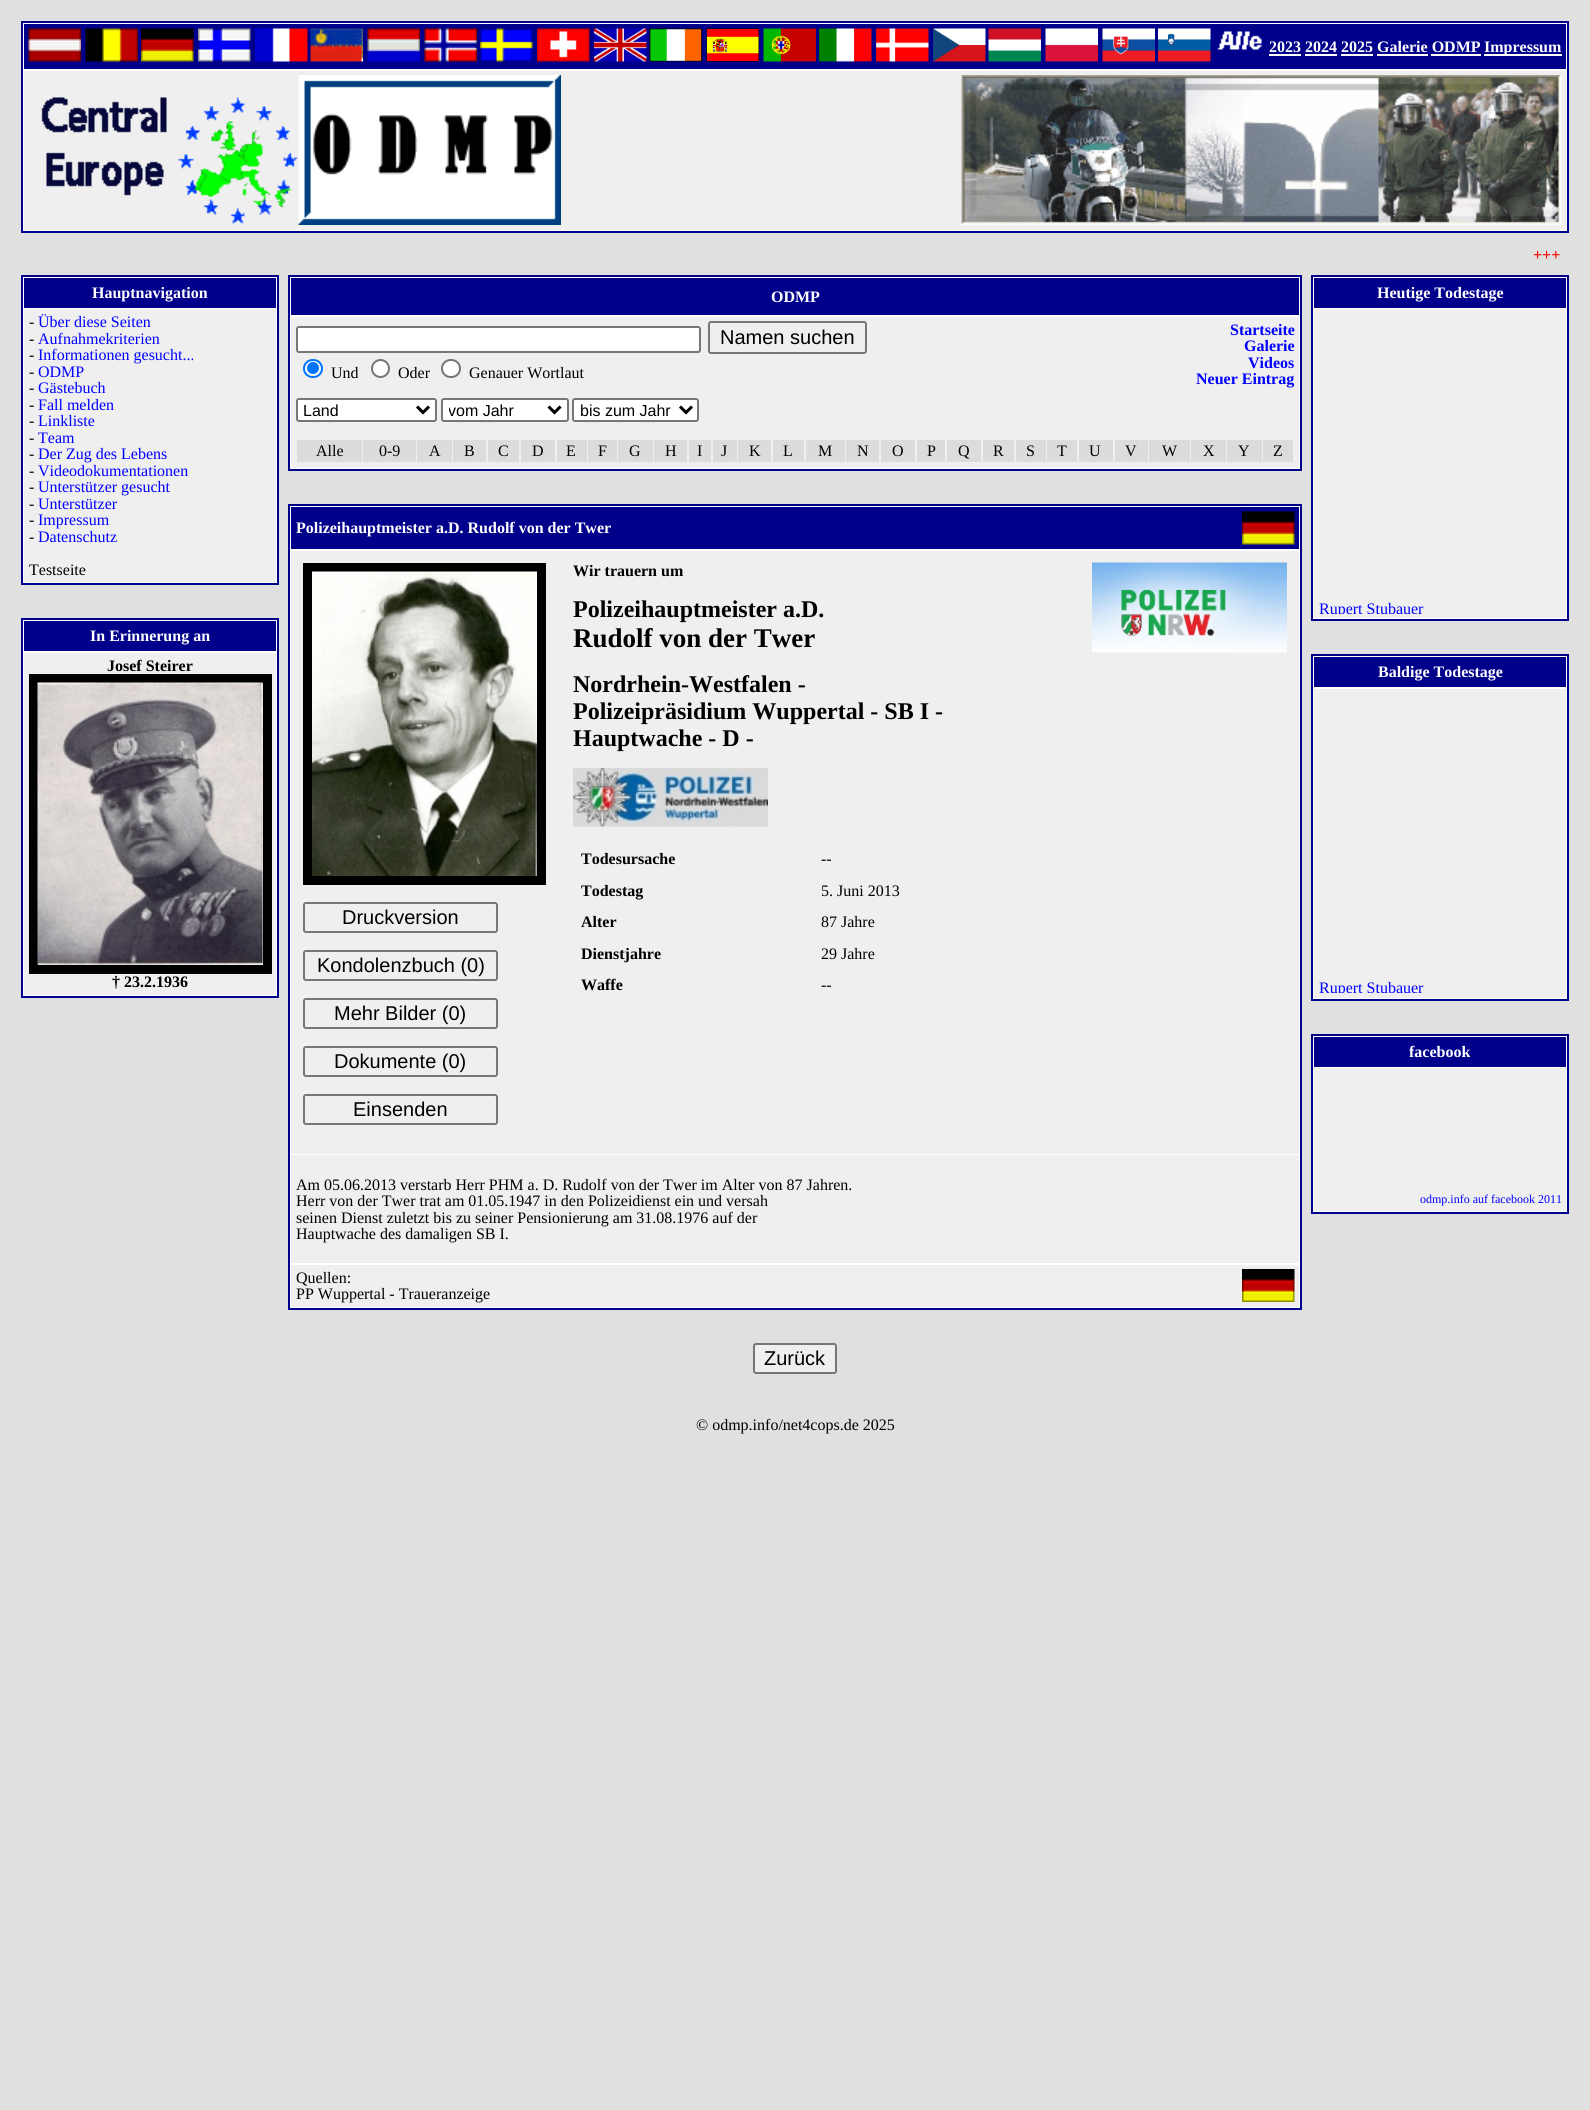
#include <cairo.h>
#include <math.h>
#include <stddef.h>


static void rgb(cairo_t *cr, int r, int g, int b)
{
	cairo_set_source_rgb(cr, r / 255.0, g / 255.0, b / 255.0);
}

static void face(cairo_t *cr, const char *family, double size, int italic, int bold)
{
	cairo_select_font_face(cr, family, italic ? CAIRO_FONT_SLANT_ITALIC : CAIRO_FONT_SLANT_NORMAL,
		bold ? CAIRO_FONT_WEIGHT_BOLD : CAIRO_FONT_WEIGHT_NORMAL);
	cairo_set_font_size(cr, size);
}

static void label(cairo_t *cr, double x, double y, const char *s)
{
	cairo_move_to(cr, x, y);
	cairo_show_text(cr, s);
}

static void rect(cairo_t *cr, double x, double y, double w, double h)
{
	cairo_rectangle(cr, x, y, w, h);
	cairo_fill(cr);
}

static void rrect(cairo_t *cr, double x, double y, double w, double h, double r)
{
	cairo_new_sub_path(cr);
	cairo_arc(cr, x + w - r, y + h - r, r, 0, M_PI / 2);
	cairo_arc(cr, x + r, y + h - r, r, M_PI / 2, M_PI);
	cairo_arc(cr, x + r, y + r, r, M_PI, 1.5 * M_PI);
	cairo_arc(cr, x + w - r, y + r, r, 1.5 * M_PI, 2 * M_PI);
	cairo_close_path(cr);
}

static void image(cairo_t *cr, const char *path, double x, double y, double w, double h)
{
	cairo_surface_t *image = cairo_image_surface_create_from_png(path);
	cairo_save(cr);
	cairo_set_source_surface(cr, image, x, y);
	cairo_rectangle(cr, x, y, w, h);
	cairo_fill(cr);
	cairo_restore(cr);
	cairo_surface_destroy(image);
}

static void draw(cairo_t *cr) {
	rgb(cr, 224, 224, 224);
	cairo_paint(cr);
	rgb(cr, 255, 255, 255);
	cairo_rectangle(cr, 22, 22, 1546, 210);
	cairo_fill_preserve(cr);
	rgb(cr, 0, 0, 139);
	cairo_stroke(cr);
	rect(cr, 24, 24, 1542, 45);
	image(cr, "image0.png", 28, 28, 53, 34);
	image(cr, "image1.png", 85, 28, 53, 34);
	image(cr, "image2.png", 141, 28, 53, 34);
	image(cr, "image3.png", 198, 28, 53, 34);
	image(cr, "image4.png", 255, 28, 53, 34);
	image(cr, "image5.png", 310, 28, 53, 34);
	image(cr, "image6.png", 367, 28, 53, 34);
	image(cr, "image7.png", 424, 28, 53, 34);
	image(cr, "image8.png", 480, 28, 53, 34);
	image(cr, "image9.png", 537, 28, 53, 34);
	image(cr, "image10.png", 594, 28, 53, 34);
	image(cr, "image11.png", 649, 28, 53, 34);
	image(cr, "image12.png", 706, 28, 53, 34);
	image(cr, "image13.png", 763, 28, 53, 34);
	image(cr, "image14.png", 819, 28, 53, 34);
	image(cr, "image15.png", 876, 28, 53, 34);
	image(cr, "image16.png", 933, 28, 53, 34);
	image(cr, "image17.png", 988, 28, 53, 34);
	image(cr, "image18.png", 1045, 28, 53, 34);
	image(cr, "image19.png", 1102, 28, 53, 34);
	image(cr, "image20.png", 1158, 28, 53, 34);
	image(cr, "image21.png", 1217, 31, 45, 19);
	face(cr, "Liberation Serif", 16, 0, 1);
	rgb(cr, 255, 255, 255);
	label(cr, 1269, 52, "2023 2024 2025 Galerie ODMP");
	rect(cr, 1269, 54, 32, 2);
	rect(cr, 1484, 54, 78, 2);
	label(cr, 1484, 52, "Impressum");
	rect(cr, 1305, 54, 32, 2);
	rect(cr, 1341, 54, 32, 2);
	rect(cr, 1377, 54, 51, 2);
	rect(cr, 1431, 54, 50, 2);
	rgb(cr, 239, 239, 239);
	rect(cr, 24, 71, 1542, 159);
	image(cr, "image22.png", 41, 97, 257, 127);
	image(cr, "image23.png", 298, 75, 263, 150);
	image(cr, "image24.png", 961, 75, 601, 150);
	rgb(cr, 255, 0, 0);
	label(cr, 1533, 260, "+++");
	rgb(cr, 255, 255, 255);
	cairo_rectangle(cr, 22, 276, 256, 308);
	cairo_fill_preserve(cr);
	rgb(cr, 0, 0, 139);
	cairo_stroke(cr);
	rect(cr, 24, 278, 252, 30);
	rgb(cr, 255, 255, 255);
	label(cr, 92, 298, "Hauptnavigation");
	rgb(cr, 239, 239, 239);
	rect(cr, 24, 309, 252, 273);
	face(cr, "Liberation Serif", 16, 0, 0);
	rgb(cr, 0, 0, 0);
	label(cr, 29, 327, "-");
	rgb(cr, 0, 0, 255);
	label(cr, 38, 327, "Über diese Seiten");
	rgb(cr, 0, 0, 0);
	label(cr, 29, 344, "-");
	rgb(cr, 0, 0, 255);
	label(cr, 38, 344, "Aufnahmekriterien");
	rgb(cr, 0, 0, 0);
	label(cr, 29, 360, "-");
	rgb(cr, 0, 0, 255);
	label(cr, 38, 360, "Informationen gesucht...");
	rgb(cr, 0, 0, 0);
	label(cr, 29, 377, "-");
	rgb(cr, 0, 0, 255);
	label(cr, 38, 377, "ODMP");
	rgb(cr, 0, 0, 0);
	label(cr, 29, 393, "-");
	rgb(cr, 0, 0, 255);
	label(cr, 38, 393, "Gästebuch");
	rgb(cr, 0, 0, 0);
	label(cr, 29, 410, "-");
	rgb(cr, 0, 0, 255);
	label(cr, 38, 410, "Fall melden");
	rgb(cr, 0, 0, 0);
	label(cr, 29, 426, "-");
	rgb(cr, 0, 0, 255);
	label(cr, 38, 426, "Linkliste");
	rgb(cr, 0, 0, 0);
	label(cr, 29, 443, "-");
	rgb(cr, 0, 0, 255);
	label(cr, 38, 443, "Team");
	rgb(cr, 0, 0, 0);
	label(cr, 29, 459, "-");
	rgb(cr, 0, 0, 255);
	label(cr, 38, 459, "Der Zug des Lebens");
	rgb(cr, 0, 0, 0);
	label(cr, 29, 476, "-");
	rgb(cr, 0, 0, 255);
	label(cr, 38, 476, "Videodokumentationen");
	rgb(cr, 0, 0, 0);
	label(cr, 29, 492, "-");
	rgb(cr, 0, 0, 255);
	label(cr, 38, 492, "Unterstützer gesucht");
	rgb(cr, 0, 0, 0);
	label(cr, 29, 509, "-");
	rgb(cr, 0, 0, 255);
	label(cr, 38, 509, "Unterstützer");
	rgb(cr, 0, 0, 0);
	label(cr, 29, 525, "-");
	rgb(cr, 0, 0, 255);
	label(cr, 38, 525, "Impressum");
	rgb(cr, 0, 0, 0);
	label(cr, 29, 542, "-");
	rgb(cr, 0, 0, 255);
	label(cr, 38, 542, "Datenschutz");
	rgb(cr, 0, 0, 0);
	label(cr, 29, 575, "Testseite");
	rgb(cr, 255, 255, 255);
	cairo_rectangle(cr, 22, 619, 256, 378);
	cairo_fill_preserve(cr);
	rgb(cr, 0, 0, 139);
	cairo_stroke(cr);
	rect(cr, 24, 621, 252, 30);
	face(cr, "Liberation Serif", 16, 0, 1);
	rgb(cr, 255, 255, 255);
	label(cr, 90, 641, "In Erinnerung an");
	rgb(cr, 239, 239, 239);
	rect(cr, 24, 653, 252, 342);
	rgb(cr, 0, 0, 0);
	label(cr, 107, 671, "Josef Steirer");
	cairo_rectangle(cr, 33.5, 678.5, 234, 291);
	cairo_set_line_width(cr, 9);
	cairo_stroke(cr);
	image(cr, "image25.png", 37, 682, 226, 283);
	label(cr, 112, 987, "† 23.2.1936");
	rgb(cr, 255, 255, 255);
	cairo_rectangle(cr, 289, 276, 1012, 194);
	cairo_fill_preserve(cr);
	rgb(cr, 0, 0, 139);
	cairo_set_line_width(cr, 2);
	cairo_stroke(cr);
	rect(cr, 291, 278, 1008, 37);
	rgb(cr, 255, 255, 255);
	label(cr, 771, 302, "ODMP");
	rgb(cr, 239, 239, 239);
	rect(cr, 291, 317, 1008, 151);
	rgb(cr, 255, 255, 255);
	rrect(cr, 297, 327, 403, 25, 2);
	cairo_fill_preserve(cr);
	rgb(cr, 118, 118, 118);
	cairo_stroke(cr);
	rrect(cr, 709, 322, 157, 31, 2);
	cairo_stroke(cr);
	face(cr, "Liberation Sans", 20, 0, 0);
	rgb(cr, 0, 0, 0);
	label(cr, 720, 344, "Namen suchen");
	rgb(cr, 255, 255, 255);
	rrect(cr, 304, 360, 18, 17, 8.5);
	cairo_fill_preserve(cr);
	rgb(cr, 0, 117, 255);
	cairo_stroke(cr);
	cairo_arc(cr, 313, 368, 6, 0, 2 * M_PI);
	cairo_fill(cr);
	face(cr, "Liberation Serif", 16, 0, 0);
	rgb(cr, 0, 0, 0);
	label(cr, 331, 378, "Und");
	rgb(cr, 255, 255, 255);
	cairo_new_path(cr);
	cairo_arc(cr, 380.5, 368.5, 8.5, 0, 2 * M_PI);
	cairo_fill_preserve(cr);
	rgb(cr, 118, 118, 118);
	cairo_stroke(cr);
	rgb(cr, 0, 0, 0);
	label(cr, 398, 378, "Oder");
	rgb(cr, 255, 255, 255);
	rrect(cr, 442, 360, 18, 17, 8.5);
	cairo_fill_preserve(cr);
	rgb(cr, 118, 118, 118);
	cairo_stroke(cr);
	rgb(cr, 0, 0, 0);
	label(cr, 469, 378, "Genauer Wortlaut");
	rgb(cr, 255, 255, 255);
	rrect(cr, 297, 399, 139, 22, 2);
	cairo_fill_preserve(cr);
	rgb(cr, 118, 118, 118);
	cairo_stroke(cr);
	cairo_new_path(cr);
	cairo_move_to(cr, 417, 406.5);
	cairo_line_to(cr, 423, 412.5);
	cairo_line_to(cr, 429, 406.5);
	rgb(cr, 0, 0, 0);
	cairo_set_line_width(cr, 3);
	cairo_stroke(cr);
	face(cr, "Liberation Sans", 16, 0, 0);
	label(cr, 303, 416, "Land");
	rgb(cr, 255, 255, 255);
	rrect(cr, 442, 399, 126, 22, 2);
	cairo_fill_preserve(cr);
	rgb(cr, 118, 118, 118);
	cairo_set_line_width(cr, 2);
	cairo_stroke(cr);
	cairo_new_path(cr);
	cairo_move_to(cr, 548.5, 406.5);
	cairo_line_to(cr, 554.5, 412.5);
	cairo_line_to(cr, 560.5, 406.5);
	rgb(cr, 0, 0, 0);
	cairo_set_line_width(cr, 3);
	cairo_stroke(cr);
	cairo_save(cr);
	cairo_rectangle(cr, 449, 399, 94, 21);
	cairo_clip(cr);
	label(cr, 448, 416, "vom Jahr");
	cairo_restore(cr);
	rgb(cr, 255, 255, 255);
	rrect(cr, 573, 399, 125, 22, 2);
	cairo_fill_preserve(cr);
	rgb(cr, 118, 118, 118);
	cairo_set_line_width(cr, 2);
	cairo_stroke(cr);
	cairo_new_path(cr);
	cairo_move_to(cr, 680, 406.5);
	cairo_line_to(cr, 686, 412.5);
	cairo_line_to(cr, 692, 406.5);
	rgb(cr, 0, 0, 0);
	cairo_set_line_width(cr, 3);
	cairo_stroke(cr);
	label(cr, 580, 416, "bis zum Jahr");
	face(cr, "Liberation Serif", 16, 0, 1);
	rgb(cr, 0, 0, 255);
	label(cr, 1230, 335, "Startseite");
	label(cr, 1244, 351, "Galerie");
	label(cr, 1248, 368, "Videos");
	label(cr, 1196, 384, "Neuer Eintrag");
	rgb(cr, 220, 220, 220);
	rect(cr, 297, 440, 65, 22);
	face(cr, "Liberation Serif", 16, 0, 0);
	rgb(cr, 0, 0, 0);
	label(cr, 316, 456, "Alle");
	rgb(cr, 220, 220, 220);
	rect(cr, 363, 440, 53, 22);
	rgb(cr, 0, 0, 0);
	label(cr, 379, 456, "0-9");
	rgb(cr, 220, 220, 220);
	rect(cr, 417, 440, 35, 22);
	rgb(cr, 0, 0, 0);
	label(cr, 429, 456, "A");
	rgb(cr, 220, 220, 220);
	rect(cr, 453, 440, 33, 22);
	rgb(cr, 0, 0, 0);
	label(cr, 464, 456, "B");
	rgb(cr, 220, 220, 220);
	rect(cr, 488, 440, 31, 22);
	rgb(cr, 0, 0, 0);
	label(cr, 498, 456, "C");
	rgb(cr, 220, 220, 220);
	rect(cr, 521, 440, 34, 22);
	rgb(cr, 0, 0, 0);
	label(cr, 532, 456, "D");
	rgb(cr, 220, 220, 220);
	rect(cr, 557, 440, 30, 22);
	rgb(cr, 0, 0, 0);
	label(cr, 566, 456, "E");
	rgb(cr, 220, 220, 220);
	rect(cr, 588, 440, 29, 22);
	rgb(cr, 0, 0, 0);
	label(cr, 598, 456, "F");
	rgb(cr, 220, 220, 220);
	rect(cr, 618, 440, 35, 22);
	rgb(cr, 0, 0, 0);
	label(cr, 629, 456, "G");
	rgb(cr, 220, 220, 220);
	rect(cr, 654, 440, 33, 22);
	rgb(cr, 0, 0, 0);
	label(cr, 665, 456, "H");
	rgb(cr, 220, 220, 220);
	rect(cr, 689, 440, 22, 22);
	rgb(cr, 0, 0, 0);
	label(cr, 697, 456, "I");
	rgb(cr, 220, 220, 220);
	rect(cr, 713, 440, 24, 22);
	rgb(cr, 0, 0, 0);
	label(cr, 721, 456, "J");
	rgb(cr, 220, 220, 220);
	rect(cr, 738, 440, 33, 22);
	rgb(cr, 0, 0, 0);
	label(cr, 749, 456, "K");
	rgb(cr, 220, 220, 220);
	rect(cr, 773, 440, 31, 22);
	rgb(cr, 0, 0, 0);
	label(cr, 783, 456, "L");
	rgb(cr, 220, 220, 220);
	rect(cr, 806, 440, 39, 22);
	rgb(cr, 0, 0, 0);
	label(cr, 818, 456, "M");
	rgb(cr, 220, 220, 220);
	rect(cr, 846, 440, 33, 22);
	rgb(cr, 0, 0, 0);
	label(cr, 857, 456, "N");
	rgb(cr, 220, 220, 220);
	rect(cr, 881, 440, 34, 22);
	rgb(cr, 0, 0, 0);
	label(cr, 892, 456, "O");
	rgb(cr, 220, 220, 220);
	rect(cr, 917, 440, 28, 22);
	rgb(cr, 0, 0, 0);
	label(cr, 927, 456, "P");
	rgb(cr, 220, 220, 220);
	rect(cr, 947, 440, 34, 22);
	rgb(cr, 0, 0, 0);
	label(cr, 958, 456, "Q");
	rgb(cr, 220, 220, 220);
	rect(cr, 983, 440, 31, 22);
	rgb(cr, 0, 0, 0);
	label(cr, 993, 456, "R");
	rgb(cr, 220, 220, 220);
	rect(cr, 1016, 440, 30, 22);
	rgb(cr, 0, 0, 0);
	label(cr, 1026, 456, "S");
	rgb(cr, 220, 220, 220);
	rect(cr, 1047, 440, 30, 22);
	rgb(cr, 0, 0, 0);
	label(cr, 1057, 456, "T");
	rgb(cr, 220, 220, 220);
	rect(cr, 1079, 440, 34, 22);
	rgb(cr, 0, 0, 0);
	label(cr, 1089, 456, "U");
	rgb(cr, 220, 220, 220);
	rect(cr, 1115, 440, 33, 22);
	rgb(cr, 0, 0, 0);
	label(cr, 1125, 456, "V");
	rgb(cr, 220, 220, 220);
	rect(cr, 1149, 440, 41, 22);
	rgb(cr, 0, 0, 0);
	label(cr, 1162, 456, "W");
	rgb(cr, 220, 220, 220);
	rect(cr, 1191, 440, 35, 22);
	rgb(cr, 0, 0, 0);
	label(cr, 1203, 456, "X");
	rgb(cr, 220, 220, 220);
	rect(cr, 1227, 440, 35, 22);
	rgb(cr, 0, 0, 0);
	label(cr, 1238, 456, "Y");
	rgb(cr, 220, 220, 220);
	rect(cr, 1263, 440, 30, 22);
	rgb(cr, 0, 0, 0);
	label(cr, 1273, 456, "Z");
	rgb(cr, 255, 255, 255);
	cairo_rectangle(cr, 289, 505, 1012, 804);
	cairo_fill_preserve(cr);
	rgb(cr, 0, 0, 139);
	cairo_set_line_width(cr, 2);
	cairo_stroke(cr);
	rect(cr, 291, 507, 1008, 42);
	face(cr, "Liberation Serif", 16, 0, 1);
	rgb(cr, 255, 255, 255);
	label(cr, 296, 533, "Polizeihauptmeister a.D. Rudolf von der Twer");
	image(cr, "image26.png", 1242, 511, 53, 34);
	rgb(cr, 239, 239, 239);
	rect(cr, 291, 551, 1008, 603);
	rgb(cr, 0, 0, 0);
	label(cr, 573, 576, "Wir trauern um");
	face(cr, "Liberation Serif", 24, 0, 1);
	label(cr, 573, 617, "Polizeihauptmeister a.D.");
	face(cr, "Liberation Serif", 27, 0, 1);
	label(cr, 573, 647, "Rudolf von der Twer");
	face(cr, "Liberation Serif", 24, 0, 1);
	label(cr, 573, 692, "Nordrhein-Westfalen -");
	label(cr, 573, 719, "Polizeipräsidium Wuppertal - SB I -");
	label(cr, 573, 746, "Hauptwache - D -");
	image(cr, "image27.png", 573, 768, 195, 59);
	face(cr, "Liberation Serif", 16, 0, 1);
	label(cr, 581, 864, "Todesursache");
	face(cr, "Liberation Serif", 16, 0, 0);
	label(cr, 821, 864, "--");
	face(cr, "Liberation Serif", 16, 0, 1);
	label(cr, 581, 896, "Todestag");
	face(cr, "Liberation Serif", 16, 0, 0);
	label(cr, 821, 896, "5. Juni 2013");
	face(cr, "Liberation Serif", 16, 0, 1);
	label(cr, 581, 927, "Alter");
	face(cr, "Liberation Serif", 16, 0, 0);
	label(cr, 821, 927, "87 Jahre");
	face(cr, "Liberation Serif", 16, 0, 1);
	label(cr, 581, 959, "Dienstjahre");
	face(cr, "Liberation Serif", 16, 0, 0);
	label(cr, 821, 959, "29 Jahre");
	face(cr, "Liberation Serif", 16, 0, 1);
	label(cr, 581, 990, "Waffe");
	face(cr, "Liberation Serif", 16, 0, 0);
	label(cr, 821, 990, "--");
	image(cr, "image28.png", 1092, 562, 195, 91);
	cairo_rectangle(cr, 307.5, 567.5, 234, 313);
	cairo_set_line_width(cr, 9);
	cairo_stroke(cr);
	image(cr, "image29.png", 312, 571, 225, 305);
	rrect(cr, 304, 903, 193, 29, 2);
	rgb(cr, 118, 118, 118);
	cairo_set_line_width(cr, 2);
	cairo_stroke(cr);
	face(cr, "Liberation Sans", 20, 0, 0);
	rgb(cr, 0, 0, 0);
	label(cr, 342, 924, "Druckversion");
	rrect(cr, 304, 951, 193, 29, 2);
	rgb(cr, 118, 118, 118);
	cairo_stroke(cr);
	rgb(cr, 0, 0, 0);
	label(cr, 317, 972, "Kondolenzbuch (0)");
	rrect(cr, 304, 999, 193, 29, 2);
	rgb(cr, 118, 118, 118);
	cairo_stroke(cr);
	rgb(cr, 0, 0, 0);
	label(cr, 334, 1020, "Mehr Bilder (0)");
	rrect(cr, 304, 1047, 193, 29, 2);
	rgb(cr, 118, 118, 118);
	cairo_stroke(cr);
	rgb(cr, 0, 0, 0);
	label(cr, 334, 1068, "Dokumente (0)");
	rrect(cr, 304, 1095, 193, 29, 2);
	rgb(cr, 118, 118, 118);
	cairo_stroke(cr);
	rgb(cr, 0, 0, 0);
	label(cr, 353, 1116, "Einsenden");
	rgb(cr, 239, 239, 239);
	rect(cr, 291, 1155, 1008, 108);
	face(cr, "Liberation Serif", 16, 0, 0);
	rgb(cr, 0, 0, 0);
	label(cr, 296, 1190, "Am 05.06.2013 verstarb Herr PHM a. D. Rudolf von der Twer im Alter von 87 Jahren.");
	label(cr, 296, 1206, "Herr von der Twer trat am 01.05.1947 in den Polizeidienst ein und versah");
	label(cr, 296, 1223, "seinen Dienst zuletzt bis zu seiner Pensionierung am 31.08.1976 auf der");
	label(cr, 296, 1239, "Hauptwache des damaligen SB I.");
	rgb(cr, 239, 239, 239);
	rect(cr, 291, 1265, 1008, 42);
	rgb(cr, 0, 0, 0);
	label(cr, 296, 1283, "Quellen:");
	label(cr, 296, 1299, "PP Wuppertal - Traueranzeige");
	image(cr, "image30.png", 1242, 1269, 53, 33);
	rgb(cr, 239, 239, 239);
	rrect(cr, 754, 1344, 82, 29, 2);
	cairo_fill_preserve(cr);
	rgb(cr, 118, 118, 118);
	cairo_stroke(cr);
	face(cr, "Liberation Sans", 20, 0, 0);
	rgb(cr, 0, 0, 0);
	label(cr, 764, 1365, "Zurück");
	rgb(cr, 255, 255, 255);
	cairo_rectangle(cr, 1312, 276, 256, 344);
	cairo_fill_preserve(cr);
	rgb(cr, 0, 0, 139);
	cairo_stroke(cr);
	rect(cr, 1314, 278, 252, 30);
	face(cr, "Liberation Serif", 16, 0, 1);
	rgb(cr, 255, 255, 255);
	label(cr, 1377, 298, "Heutige Todestage");
	rgb(cr, 239, 239, 239);
	rect(cr, 1314, 309, 252, 309);
	cairo_save(cr);
	cairo_rectangle(cr, 1319, 314, 243, 300);
	cairo_clip(cr);
	face(cr, "Liberation Serif", 16, 0, 0);
	rgb(cr, 0, 0, 255);
	label(cr, 1319, 614, "Rupert Stubauer");
	cairo_restore(cr);
	rgb(cr, 255, 255, 255);
	cairo_rectangle(cr, 1312, 655, 256, 345);
	cairo_fill_preserve(cr);
	rgb(cr, 0, 0, 139);
	cairo_stroke(cr);
	rect(cr, 1314, 657, 252, 30);
	rgb(cr, 255, 255, 255);
	label(cr, 1378, 677, "Baldige Todestage");
	rgb(cr, 239, 239, 239);
	rect(cr, 1314, 689, 252, 309);
	cairo_save(cr);
	cairo_rectangle(cr, 1319, 693, 243, 300);
	cairo_clip(cr);
	face(cr, "Liberation Serif", 16, 0, 0);
	rgb(cr, 0, 0, 255);
	label(cr, 1319, 993, "Rupert Stubauer");
	cairo_restore(cr);
	rgb(cr, 255, 255, 255);
	cairo_rectangle(cr, 1312, 1035, 256, 178);
	cairo_fill_preserve(cr);
	rgb(cr, 0, 0, 139);
	cairo_stroke(cr);
	rect(cr, 1314, 1037, 252, 30);
	rgb(cr, 255, 255, 255);
	label(cr, 1409, 1057, "facebook");
	rgb(cr, 239, 239, 239);
	rect(cr, 1314, 1068, 252, 143);
	face(cr, "Liberation Serif", 12, 0, 0);
	rgb(cr, 0, 0, 255);
	label(cr, 1420, 1203, "odmp.info auf facebook 2011");
	face(cr, "Liberation Serif", 16, 0, 0);
	rgb(cr, 0, 0, 0);
	label(cr, 696, 1430, "© odmp.info/net4cops.de 2025");
}

int main(void) {
	cairo_surface_t *surface = cairo_image_surface_create(CAIRO_FORMAT_RGB24, 1590, 2110);
	cairo_t *cr = cairo_create(surface);
	cairo_font_options_t *options = cairo_font_options_create();
	cairo_font_options_set_hint_metrics(options, CAIRO_HINT_METRICS_OFF);
	cairo_font_options_set_hint_style(options, CAIRO_HINT_STYLE_NONE);
	cairo_set_font_options(cr, options);
	cairo_set_miter_limit(cr, 4);
	draw(cr);
	cairo_surface_write_to_png(surface, "render.png");
	cairo_font_options_destroy(options);
	cairo_destroy(cr);
	cairo_surface_destroy(surface);
	return 0;
}
